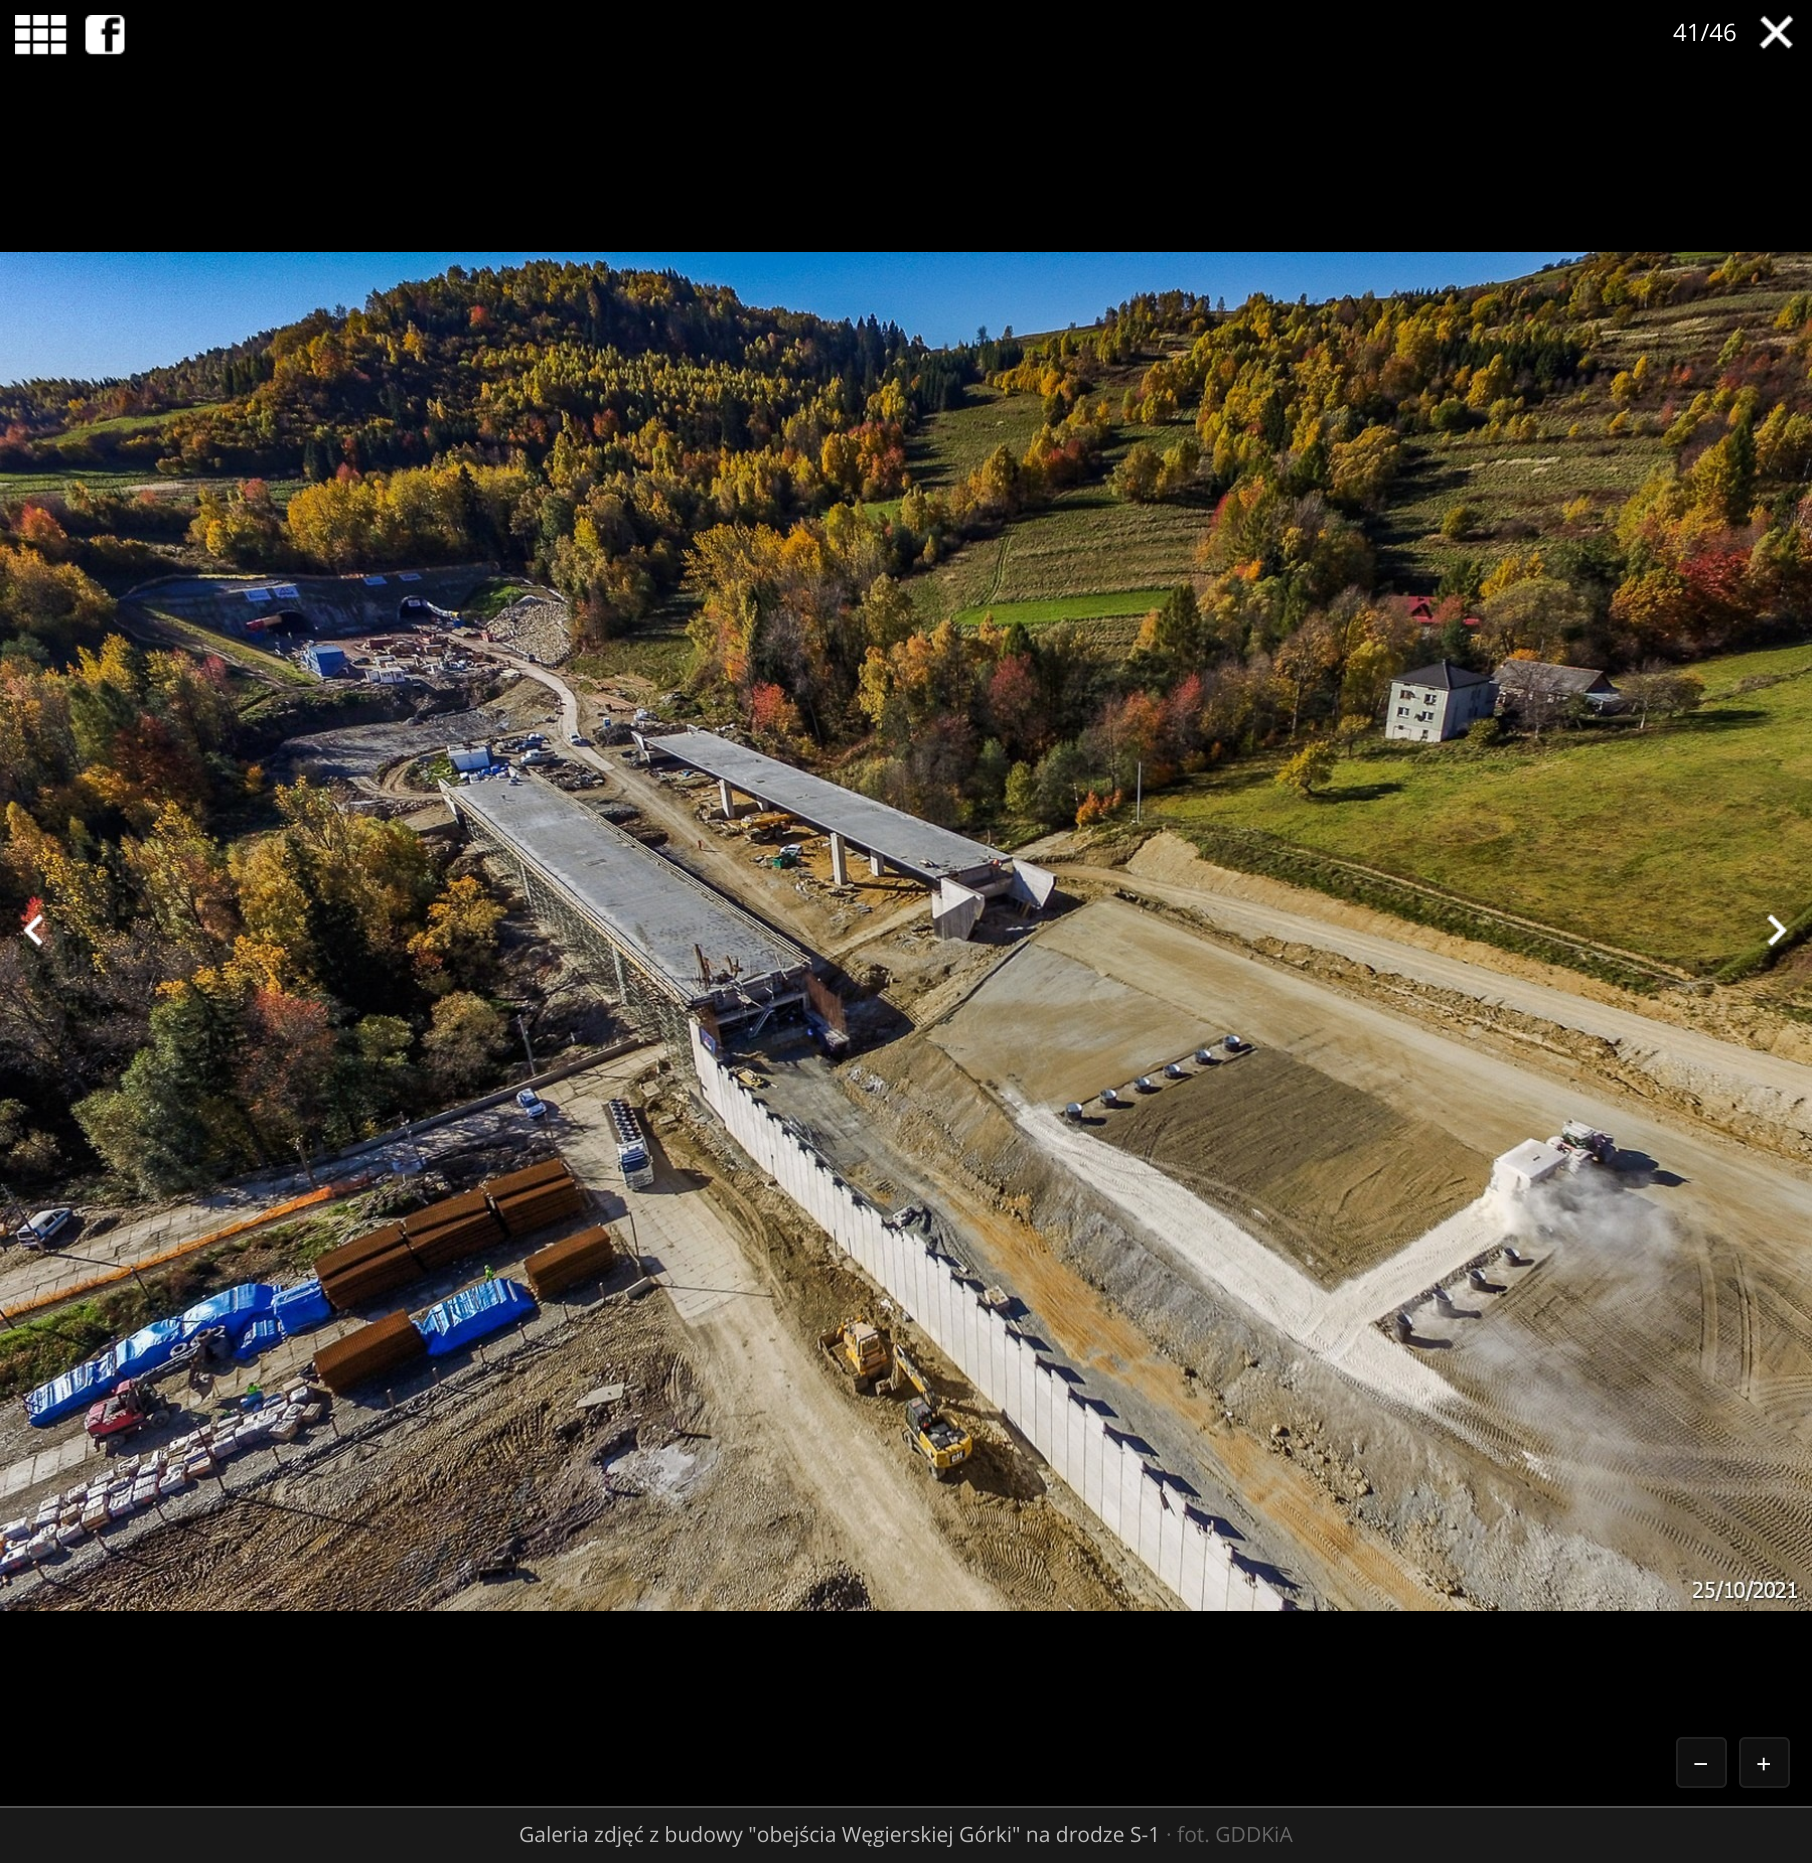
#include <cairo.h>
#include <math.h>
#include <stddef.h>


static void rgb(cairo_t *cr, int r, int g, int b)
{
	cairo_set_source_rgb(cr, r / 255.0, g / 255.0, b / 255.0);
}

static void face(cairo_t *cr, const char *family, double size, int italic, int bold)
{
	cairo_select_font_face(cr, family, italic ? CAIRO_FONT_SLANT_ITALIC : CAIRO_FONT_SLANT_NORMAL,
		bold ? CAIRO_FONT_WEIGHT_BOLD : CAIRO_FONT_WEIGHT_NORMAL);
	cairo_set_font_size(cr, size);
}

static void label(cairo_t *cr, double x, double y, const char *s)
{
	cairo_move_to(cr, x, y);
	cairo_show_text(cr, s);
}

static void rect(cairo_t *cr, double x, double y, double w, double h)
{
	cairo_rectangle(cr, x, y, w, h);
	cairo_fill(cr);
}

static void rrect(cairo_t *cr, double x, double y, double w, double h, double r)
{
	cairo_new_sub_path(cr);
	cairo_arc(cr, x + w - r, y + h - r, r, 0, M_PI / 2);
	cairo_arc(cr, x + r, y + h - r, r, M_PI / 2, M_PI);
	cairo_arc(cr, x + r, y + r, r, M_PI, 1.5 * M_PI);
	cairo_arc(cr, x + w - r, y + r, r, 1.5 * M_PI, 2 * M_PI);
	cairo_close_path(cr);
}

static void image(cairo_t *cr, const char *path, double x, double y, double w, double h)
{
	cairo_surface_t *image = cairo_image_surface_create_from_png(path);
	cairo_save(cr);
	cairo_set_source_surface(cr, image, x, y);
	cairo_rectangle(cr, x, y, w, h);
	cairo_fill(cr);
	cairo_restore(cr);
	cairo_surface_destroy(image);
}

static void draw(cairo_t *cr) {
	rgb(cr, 0, 0, 0);
	cairo_paint(cr);
	face(cr, "Open Sans", 24, 0, 0);
	rgb(cr, 255, 255, 255);
	label(cr, 1673, 41, "41/46");
	image(cr, "image0.png", 1759, 15, 35, 35);
	image(cr, "image1.png", 0, 252, 1812, 1359);
	image(cr, "image2.png", 22, 913, 23, 36);
	image(cr, "image3.png", 1767, 913, 22, 35);
	image(cr, "image4.png", 15, 15, 53, 40);
	image(cr, "image5.png", 85, 15, 40, 40);
	rgb(cr, 15, 15, 15);
	rrect(cr, 1676, 1737, 51, 51, 6);
	cairo_fill(cr);
	rrect(cr, 1677, 1738, 49, 49, 5);
	cairo_set_source_rgba(cr, 1, 1, 1, 0.08);
	cairo_stroke(cr);
	face(cr, "Liberation Serif", 27, 0, 1);
	rgb(cr, 255, 255, 255);
	label(cr, 1693, 1773, "−");
	rgb(cr, 15, 15, 15);
	rrect(cr, 1739, 1737, 51, 51, 6);
	cairo_fill(cr);
	rrect(cr, 1740, 1738, 49, 49, 5);
	cairo_set_source_rgba(cr, 1, 1, 1, 0.08);
	cairo_stroke(cr);
	rgb(cr, 255, 255, 255);
	label(cr, 1756, 1773, "+");
	rgb(cr, 25, 25, 25);
	rect(cr, 0, 1808, 1812, 55);
	rgb(cr, 85, 85, 85);
	rect(cr, 0, 1806, 1812, 2);
	face(cr, "Open Sans", 21, 0, 0);
	rgb(cr, 188, 188, 188);
	label(cr, 519, 1842, "Galeria zdjęć z budowy \"obejścia Węgierskiej Górki\" na drodze S-1");
	rgb(cr, 102, 102, 102);
	label(cr, 1166, 1842, "· fot. GDDKiA");
}

int main(void) {
	cairo_surface_t *surface = cairo_image_surface_create(CAIRO_FORMAT_RGB24, 1812, 1863);
	cairo_t *cr = cairo_create(surface);
	cairo_font_options_t *options = cairo_font_options_create();
	cairo_font_options_set_hint_metrics(options, CAIRO_HINT_METRICS_OFF);
	cairo_font_options_set_hint_style(options, CAIRO_HINT_STYLE_NONE);
	cairo_set_font_options(cr, options);
	cairo_set_miter_limit(cr, 4);
	draw(cr);
	cairo_surface_write_to_png(surface, "render.png");
	cairo_font_options_destroy(options);
	cairo_destroy(cr);
	cairo_surface_destroy(surface);
	return 0;
}
